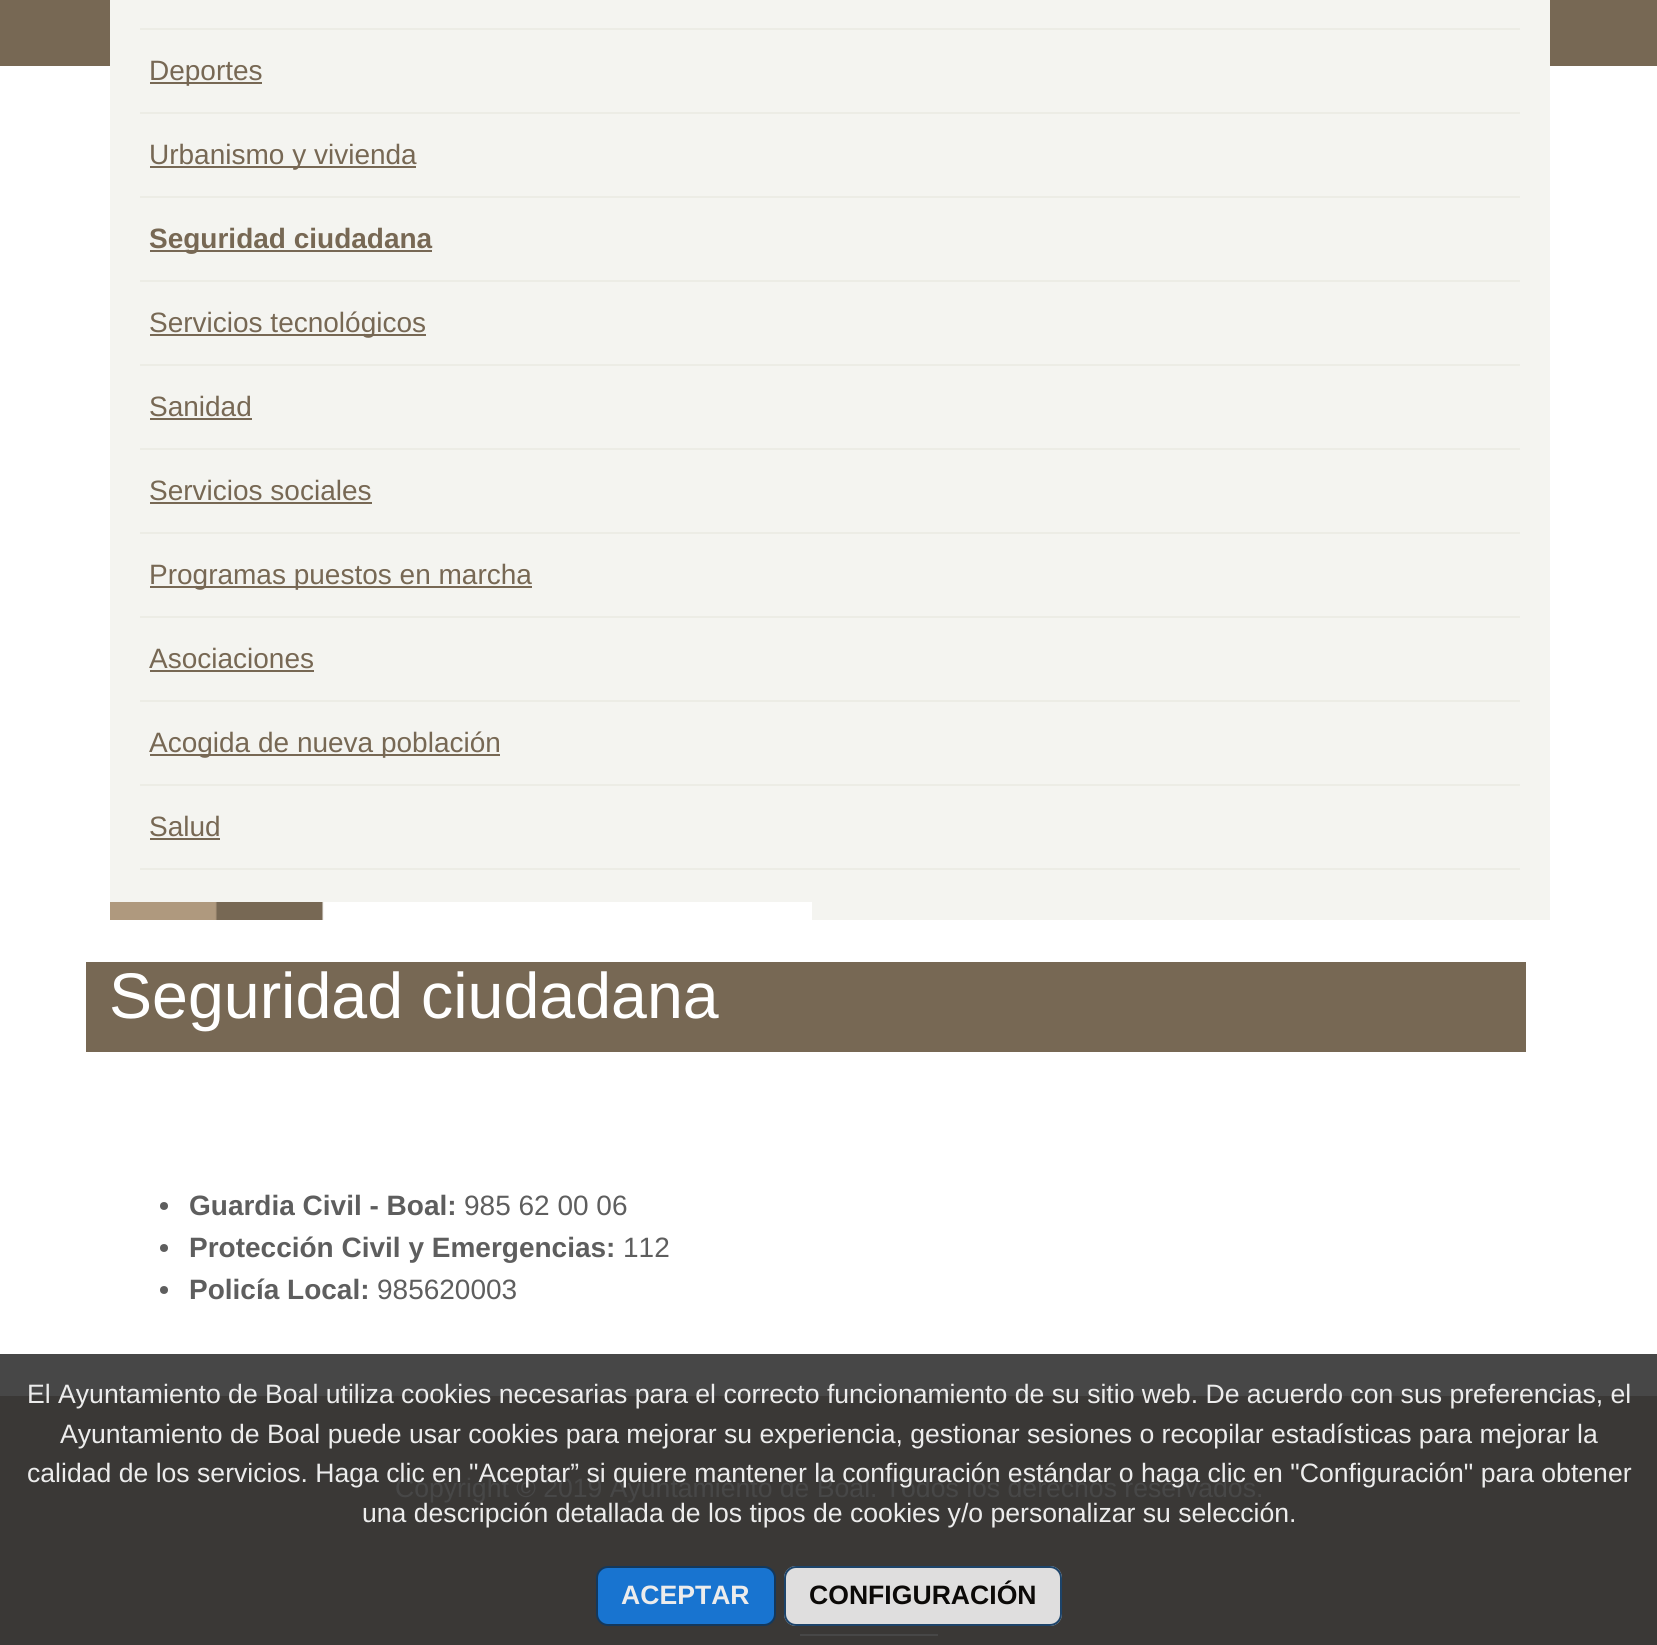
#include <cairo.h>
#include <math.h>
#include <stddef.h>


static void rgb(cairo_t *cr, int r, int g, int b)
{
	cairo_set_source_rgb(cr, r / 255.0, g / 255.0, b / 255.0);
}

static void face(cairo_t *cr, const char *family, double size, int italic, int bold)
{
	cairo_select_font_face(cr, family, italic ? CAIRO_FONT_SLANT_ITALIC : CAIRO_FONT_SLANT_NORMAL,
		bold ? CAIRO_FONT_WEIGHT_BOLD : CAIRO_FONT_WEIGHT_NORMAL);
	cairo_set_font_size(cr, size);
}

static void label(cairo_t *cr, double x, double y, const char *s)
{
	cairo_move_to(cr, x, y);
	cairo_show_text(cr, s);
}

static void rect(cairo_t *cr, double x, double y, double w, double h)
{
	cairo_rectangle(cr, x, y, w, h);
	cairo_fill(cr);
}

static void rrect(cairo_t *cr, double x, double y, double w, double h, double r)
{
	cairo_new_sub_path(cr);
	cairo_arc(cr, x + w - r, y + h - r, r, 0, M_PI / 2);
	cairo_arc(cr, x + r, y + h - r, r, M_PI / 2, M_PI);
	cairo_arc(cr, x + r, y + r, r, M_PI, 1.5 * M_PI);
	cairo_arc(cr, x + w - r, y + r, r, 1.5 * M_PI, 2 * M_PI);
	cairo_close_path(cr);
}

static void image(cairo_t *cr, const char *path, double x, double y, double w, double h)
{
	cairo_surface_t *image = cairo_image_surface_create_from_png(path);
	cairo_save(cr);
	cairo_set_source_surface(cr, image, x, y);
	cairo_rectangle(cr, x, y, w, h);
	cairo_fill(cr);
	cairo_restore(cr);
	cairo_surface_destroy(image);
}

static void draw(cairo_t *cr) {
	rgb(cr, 255, 255, 255);
	cairo_paint(cr);
	rgb(cr, 71, 71, 71);
	rect(cr, 0, 1354, 1657, 42);
	rgb(cr, 119, 104, 84);
	rect(cr, 0, 0, 1657, 66);
	rgb(cr, 244, 244, 240);
	rect(cr, 110, 0, 1440, 920);
	image(cr, "image0.png", 110, 902, 702, 18);
	rgb(cr, 236, 236, 229);
	rect(cr, 140, 28, 1380, 2);
	rect(cr, 140, 112, 1380, 2);
	rgb(cr, 119, 104, 84);
	rect(cr, 150, 82, 112, 2);
	face(cr, "Liberation Sans", 28, 0, 0);
	label(cr, 149, 80, "Deportes");
	rgb(cr, 236, 236, 229);
	rect(cr, 140, 196, 1380, 2);
	rgb(cr, 119, 104, 84);
	rect(cr, 150, 166, 266, 2);
	label(cr, 149, 164, "Urbanismo y vivienda");
	rgb(cr, 236, 236, 229);
	rect(cr, 140, 280, 1380, 2);
	rgb(cr, 119, 104, 85);
	rect(cr, 150, 250, 282, 2);
	face(cr, "Liberation Sans", 28, 0, 1);
	rgb(cr, 119, 104, 84);
	label(cr, 149, 248, "Seguridad ciudadana");
	rgb(cr, 236, 236, 229);
	rect(cr, 140, 364, 1380, 2);
	rgb(cr, 119, 104, 84);
	rect(cr, 150, 334, 276, 2);
	face(cr, "Liberation Sans", 28, 0, 0);
	label(cr, 149, 332, "Servicios tecnológicos");
	rgb(cr, 236, 236, 229);
	rect(cr, 140, 448, 1380, 2);
	rgb(cr, 119, 104, 84);
	label(cr, 149, 416, "Sanidad");
	rect(cr, 150, 418, 102, 2);
	rgb(cr, 236, 236, 229);
	rect(cr, 140, 532, 1380, 2);
	rgb(cr, 119, 104, 84);
	label(cr, 149, 500, "Servicios sociales");
	rect(cr, 150, 502, 222, 2);
	rgb(cr, 236, 236, 229);
	rect(cr, 140, 616, 1380, 2);
	rgb(cr, 119, 104, 84);
	rect(cr, 150, 586, 382, 2);
	label(cr, 149, 584, "Programas puestos en marcha");
	rgb(cr, 236, 236, 229);
	rect(cr, 140, 700, 1380, 2);
	rgb(cr, 119, 104, 84);
	label(cr, 149, 668, "Asociaciones");
	rect(cr, 150, 670, 164, 2);
	rgb(cr, 236, 236, 229);
	rect(cr, 140, 784, 1380, 2);
	rgb(cr, 119, 104, 84);
	rect(cr, 150, 754, 350, 2);
	label(cr, 149, 752, "Acogida de nueva población");
	rgb(cr, 236, 236, 229);
	rect(cr, 140, 868, 1380, 2);
	rgb(cr, 119, 104, 84);
	label(cr, 149, 836, "Salud");
	rect(cr, 150, 838, 70, 2);
	rect(cr, 86, 962, 1440, 90);
	face(cr, "Liberation Sans", 64.5, 0, 0);
	rgb(cr, 255, 255, 255);
	label(cr, 109, 1018, "Seguridad ciudadana");
	rgb(cr, 94, 94, 94);
	cairo_new_path(cr);
	cairo_arc(cr, 164, 1206, 4, 0, 2 * M_PI);
	cairo_fill(cr);
	face(cr, "Liberation Sans", 28, 0, 1);
	label(cr, 189, 1215, "Guardia Civil - Boal:");
	face(cr, "Liberation Sans", 28, 0, 0);
	label(cr, 464, 1215, "985 62 00 06");
	cairo_new_path(cr);
	cairo_arc(cr, 164, 1248, 4, 0, 2 * M_PI);
	cairo_fill(cr);
	face(cr, "Liberation Sans", 28, 0, 1);
	label(cr, 189, 1257, "Protección Civil y Emergencias:");
	face(cr, "Liberation Sans", 28, 0, 0);
	label(cr, 623, 1257, "112");
	cairo_new_path(cr);
	cairo_arc(cr, 164, 1290, 4, 0, 2 * M_PI);
	cairo_fill(cr);
	face(cr, "Liberation Sans", 28, 0, 1);
	label(cr, 189, 1299, "Policía Local:");
	face(cr, "Liberation Sans", 28, 0, 0);
	label(cr, 377, 1299, "985620003");
	rgb(cr, 58, 56, 54);
	rect(cr, 0, 1396, 1657, 249);
	face(cr, "Liberation Sans", 26.6, 0, 0);
	rgb(cr, 236, 236, 236);
	label(cr, 27, 1403, "El Ayuntamiento de Boal utiliza cookies necesarias para el correcto funcionamiento de su sitio web. De acuerdo con sus preferencias, el");
	label(cr, 60, 1443, "Ayuntamiento de Boal puede usar cookies para mejorar su experiencia, gestionar sesiones o recopilar estadísticas para mejorar la");
	rgb(cr, 71, 71, 71);
	label(cr, 395, 1497, "Copyright © 2019 Ayuntamiento de Boal. Todos los derechos reservados.");
	rgb(cr, 236, 236, 236);
	label(cr, 27, 1482, "calidad de los servicios. Haga clic en \"Aceptar” si quiere mantener la configuración estándar o haga clic en \"Configuración\" para obtener");
	label(cr, 362, 1522, "una descripción detallada de los tipos de cookies y/o personalizar su selección.");
	rgb(cr, 24, 116, 208);
	rrect(cr, 597, 1567, 178, 58, 11);
	cairo_fill_preserve(cr);
	rgb(cr, 19, 56, 92);
	cairo_stroke(cr);
	face(cr, "Liberation Sans", 26.6, 0, 1);
	rgb(cr, 236, 236, 236);
	label(cr, 621, 1604, "ACEPTAR");
	cairo_set_source_rgba(cr, 0.945, 0.945, 0.945, 0.9);
	rrect(cr, 784, 1566, 278, 60, 12);
	cairo_fill(cr);
	rrect(cr, 785, 1567, 276, 58, 11);
	cairo_set_source_rgba(cr, 0.031, 0.2, 0.365, 0.9);
	cairo_stroke(cr);
	rgb(cr, 12, 10, 8);
	label(cr, 809, 1604, "CONFIGURACIÓN");
	rgb(cr, 71, 71, 71);
	rect(cr, 800, 1634, 138, 2);
}

int main(void) {
	cairo_surface_t *surface = cairo_image_surface_create(CAIRO_FORMAT_RGB24, 1657, 1645);
	cairo_t *cr = cairo_create(surface);
	cairo_font_options_t *options = cairo_font_options_create();
	cairo_font_options_set_hint_metrics(options, CAIRO_HINT_METRICS_OFF);
	cairo_font_options_set_hint_style(options, CAIRO_HINT_STYLE_NONE);
	cairo_set_font_options(cr, options);
	cairo_set_miter_limit(cr, 4);
	draw(cr);
	cairo_surface_write_to_png(surface, "render.png");
	cairo_font_options_destroy(options);
	cairo_destroy(cr);
	cairo_surface_destroy(surface);
	return 0;
}
